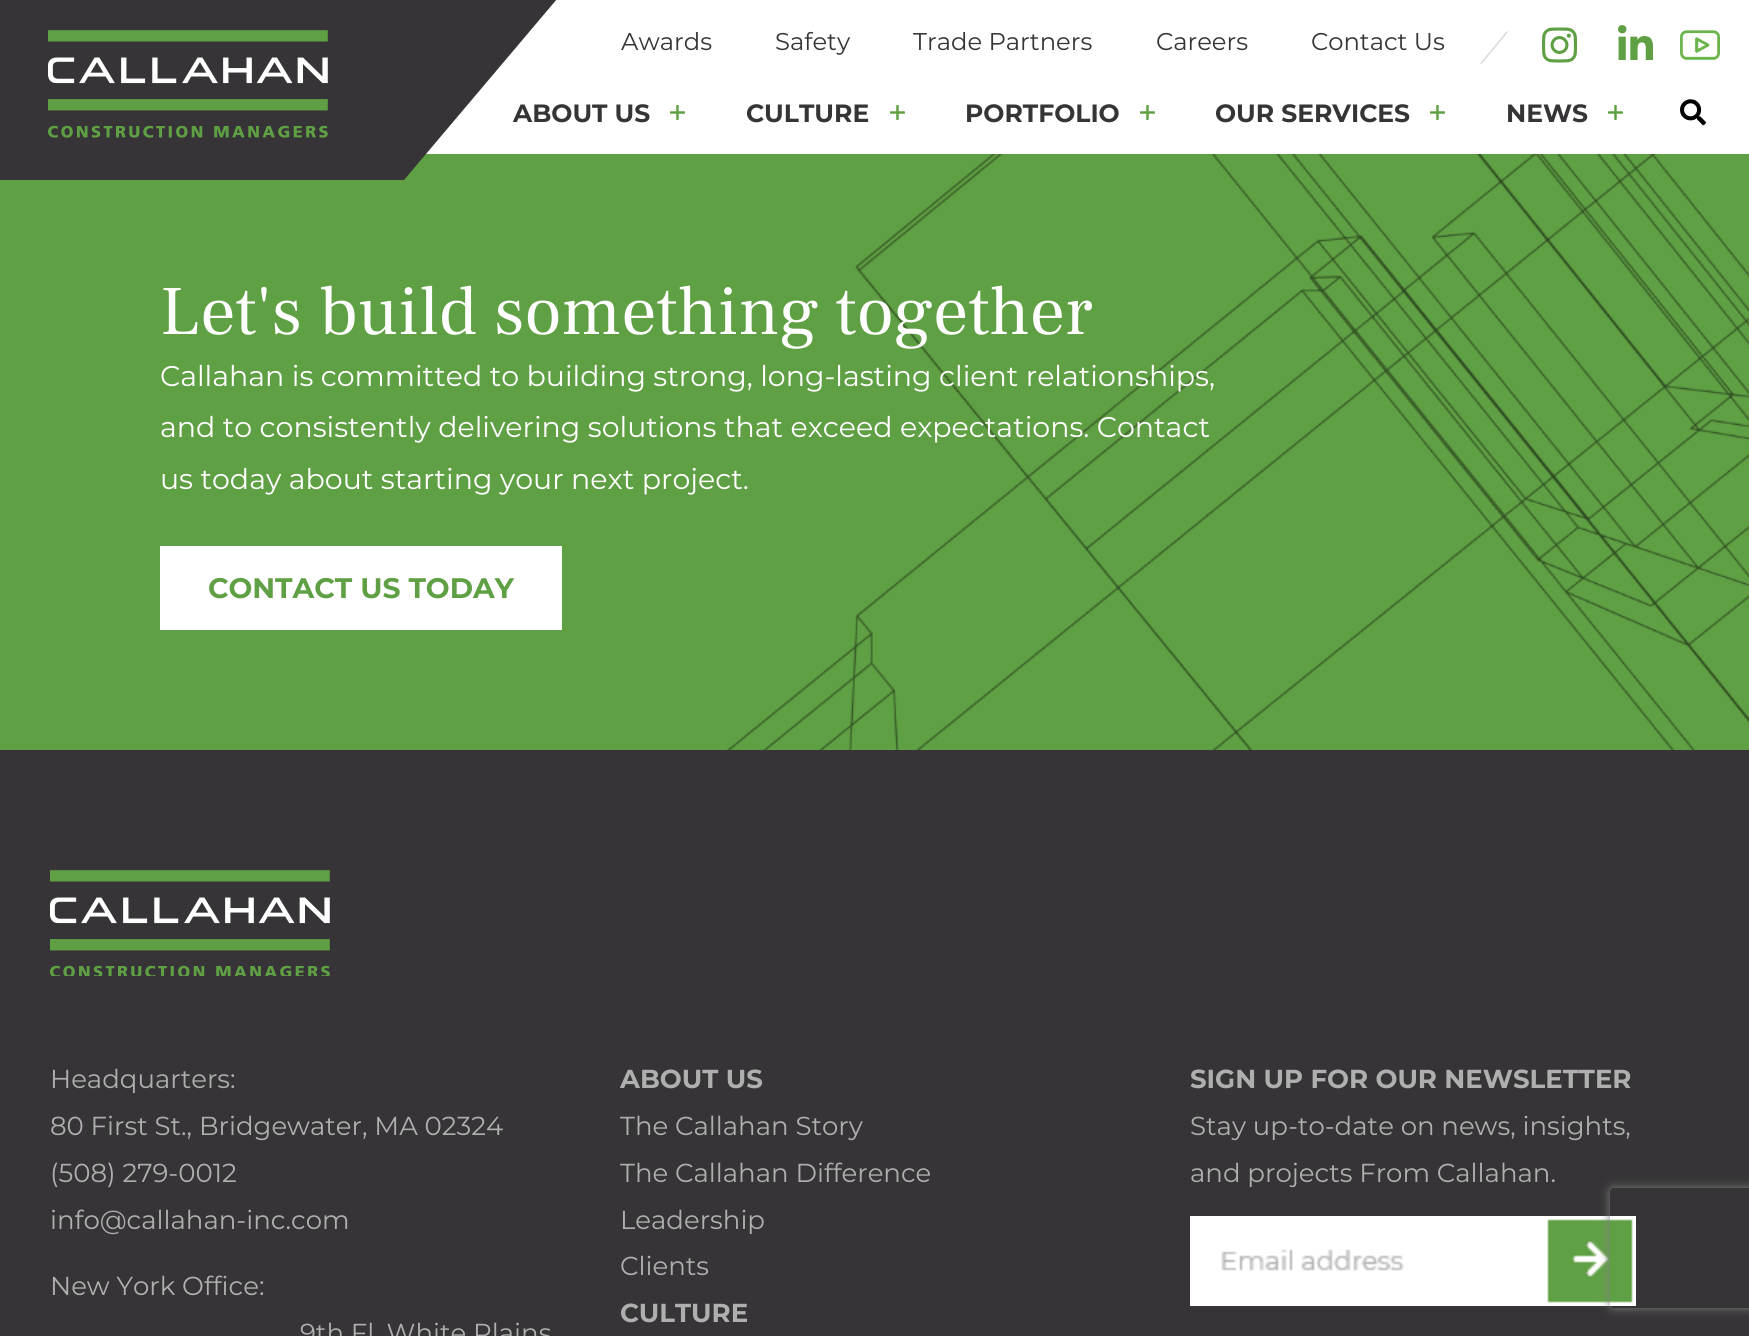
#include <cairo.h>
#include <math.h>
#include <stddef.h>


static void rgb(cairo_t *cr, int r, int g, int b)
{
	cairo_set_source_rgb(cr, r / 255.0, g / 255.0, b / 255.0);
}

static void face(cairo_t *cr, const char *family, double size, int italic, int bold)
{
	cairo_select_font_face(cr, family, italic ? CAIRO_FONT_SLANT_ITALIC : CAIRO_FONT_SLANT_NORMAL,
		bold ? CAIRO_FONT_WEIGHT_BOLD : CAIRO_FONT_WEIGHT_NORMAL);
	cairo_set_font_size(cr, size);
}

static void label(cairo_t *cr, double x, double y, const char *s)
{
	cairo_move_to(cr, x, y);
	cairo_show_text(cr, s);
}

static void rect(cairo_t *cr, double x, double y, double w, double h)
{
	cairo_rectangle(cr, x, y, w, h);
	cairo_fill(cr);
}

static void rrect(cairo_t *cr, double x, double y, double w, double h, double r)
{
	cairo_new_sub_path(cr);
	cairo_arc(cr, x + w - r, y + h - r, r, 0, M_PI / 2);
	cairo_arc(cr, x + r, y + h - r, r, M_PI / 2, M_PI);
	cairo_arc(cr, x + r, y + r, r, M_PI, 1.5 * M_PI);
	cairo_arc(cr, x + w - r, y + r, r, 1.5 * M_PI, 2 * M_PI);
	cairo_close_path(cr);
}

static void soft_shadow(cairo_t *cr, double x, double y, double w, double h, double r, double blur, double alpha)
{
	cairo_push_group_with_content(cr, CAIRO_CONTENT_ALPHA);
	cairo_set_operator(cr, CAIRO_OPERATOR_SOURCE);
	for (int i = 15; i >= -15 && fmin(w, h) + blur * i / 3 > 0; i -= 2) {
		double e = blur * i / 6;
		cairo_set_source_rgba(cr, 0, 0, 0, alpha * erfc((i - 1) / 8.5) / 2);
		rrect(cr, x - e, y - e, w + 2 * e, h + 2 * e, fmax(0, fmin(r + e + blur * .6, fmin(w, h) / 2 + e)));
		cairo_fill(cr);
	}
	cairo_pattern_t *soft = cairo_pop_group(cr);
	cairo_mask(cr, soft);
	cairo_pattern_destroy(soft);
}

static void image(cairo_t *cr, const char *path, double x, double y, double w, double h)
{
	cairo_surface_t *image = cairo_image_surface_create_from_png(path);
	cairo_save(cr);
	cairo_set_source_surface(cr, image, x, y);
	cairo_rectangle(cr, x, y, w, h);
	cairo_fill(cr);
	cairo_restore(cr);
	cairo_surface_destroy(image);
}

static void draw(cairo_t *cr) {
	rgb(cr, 255, 255, 255);
	cairo_paint(cr);
	rgb(cr, 96, 160, 68);
	rect(cr, 0, 154, 1749, 596);
	rgb(cr, 54, 52, 54);
	cairo_new_path(cr);
	cairo_move_to(cr, 163, -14);
	cairo_line_to(cr, 568, -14);
	cairo_line_to(cr, 404, 180);
	cairo_line_to(cr, 0, 180);
	cairo_close_path(cr);
	cairo_fill(cr);
	rect(cr, 0, 0, 152, 180);
	image(cr, "image0.png", 48, 30, 280, 108);
	face(cr, "Montserrat", 24.25, 0, 0);
	label(cr, 621, 50, "Awards");
	label(cr, 775, 50, "Safety");
	label(cr, 913, 50, "Trade Partners");
	label(cr, 1156, 50, "Careers");
	label(cr, 1311, 50, "Contact Us");
	rgb(cr, 217, 217, 217);
	cairo_new_path(cr);
	cairo_move_to(cr, 1506.5, 31.5);
	cairo_line_to(cr, 1508.5, 31.5);
	cairo_line_to(cr, 1482, 63.5);
	cairo_line_to(cr, 1480, 63.5);
	cairo_close_path(cr);
	cairo_fill(cr);
	image(cr, "image1.png", 1542, 27, 35, 36);
	image(cr, "image2.png", 1618, 25, 35, 35);
	image(cr, "image3.png", 1680, 30, 40, 31);
	face(cr, "Montserrat", 25, 0, 1);
	rgb(cr, 54, 52, 54);
	label(cr, 513, 122, "ABOUT US");
	image(cr, "image4.png", 670, 105, 15, 15);
	label(cr, 746, 122, "CULTURE");
	image(cr, "image4.png", 890, 105, 15, 15);
	label(cr, 965, 122, "PORTFOLIO");
	image(cr, "image4.png", 1140, 105, 15, 15);
	label(cr, 1215, 122, "OUR SERVICES");
	image(cr, "image4.png", 1430, 105, 15, 15);
	label(cr, 1506, 122, "NEWS");
	image(cr, "image4.png", 1608, 105, 15, 15);
	image(cr, "image5.png", 1680, 99, 26, 27);
	image(cr, "image6.png", 727, 154, 1022, 596);
	face(cr, "Frank Ruhl Libre", 69.7, 0, 0);
	rgb(cr, 255, 255, 255);
	label(cr, 160, 334, "Let's build something together");
	face(cr, "Montserrat", 28.45, 0, 0);
	label(cr, 160, 386, "Callahan is committed to building strong, long-lasting client relationships,");
	label(cr, 160, 437, "and to consistently delivering solutions that exceed expectations. Contact");
	label(cr, 160, 489, "us today about starting your next project.");
	rect(cr, 160, 546, 402, 84);
	face(cr, "Montserrat", 28.25, 0, 1);
	rgb(cr, 96, 160, 68);
	label(cr, 208, 598, "CONTACT US TODAY");
	rgb(cr, 54, 52, 54);
	rect(cr, 0, 750, 1749, 586);
	image(cr, "image7.png", 50, 870, 280, 106);
	face(cr, "Montserrat", 26, 0, 0);
	rgb(cr, 175, 175, 175);
	label(cr, 50, 1088, "Headquarters:");
	label(cr, 50, 1135, "80 First St., Bridgewater, MA 02324");
	label(cr, 50, 1182, "(508) 279-0012");
	label(cr, 50, 1229, "info@callahan-inc.com");
	label(cr, 50, 1295, "New York Office:");
	label(cr, 300, 1342, "9th Fl. White Plains");
	face(cr, "Montserrat", 26, 0, 1);
	label(cr, 620, 1088, "ABOUT US");
	face(cr, "Montserrat", 26, 0, 0);
	label(cr, 620, 1135, "The Callahan Story");
	label(cr, 620, 1182, "The Callahan Difference");
	label(cr, 620, 1229, "Leadership");
	label(cr, 620, 1275, "Clients");
	face(cr, "Montserrat", 26, 0, 1);
	label(cr, 620, 1322, "CULTURE");
	label(cr, 1190, 1088, "SIGN UP FOR OUR NEWSLETTER");
	face(cr, "Montserrat", 26, 0, 0);
	label(cr, 1190, 1135, "Stay up-to-date on news, insights,");
	label(cr, 1190, 1182, "and projects From Callahan.");
	image(cr, "image8.png", 1190, 1216, 446, 90);
	cairo_save(cr);
	cairo_set_fill_rule(cr, CAIRO_FILL_RULE_EVEN_ODD);
	cairo_new_path(cr);
	cairo_move_to(cr, 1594, 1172);
	cairo_line_to(cr, 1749, 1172);
	cairo_line_to(cr, 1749, 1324);
	cairo_line_to(cr, 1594, 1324);
	cairo_close_path(cr);
	cairo_move_to(cr, 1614, 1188);
	cairo_line_to(cr, 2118, 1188);
	cairo_curve_to(cr, 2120, 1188, 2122, 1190, 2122, 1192);
	cairo_line_to(cr, 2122, 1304);
	cairo_curve_to(cr, 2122, 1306, 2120, 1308, 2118, 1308);
	cairo_line_to(cr, 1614, 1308);
	cairo_curve_to(cr, 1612, 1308, 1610, 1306, 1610, 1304);
	cairo_line_to(cr, 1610, 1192);
	cairo_curve_to(cr, 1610, 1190, 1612, 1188, 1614, 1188);
	cairo_close_path(cr);
	cairo_clip(cr);
	rgb(cr, 128, 128, 128);
	soft_shadow(cr, 1610, 1188, 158, 120, 4, 5, 1);
	cairo_restore(cr);
}

int main(void) {
	cairo_surface_t *surface = cairo_image_surface_create(CAIRO_FORMAT_RGB24, 1749, 1336);
	cairo_t *cr = cairo_create(surface);
	cairo_font_options_t *options = cairo_font_options_create();
	cairo_font_options_set_hint_metrics(options, CAIRO_HINT_METRICS_OFF);
	cairo_font_options_set_hint_style(options, CAIRO_HINT_STYLE_NONE);
	cairo_set_font_options(cr, options);
	cairo_set_miter_limit(cr, 4);
	draw(cr);
	cairo_surface_write_to_png(surface, "render.png");
	cairo_font_options_destroy(options);
	cairo_destroy(cr);
	cairo_surface_destroy(surface);
	return 0;
}
